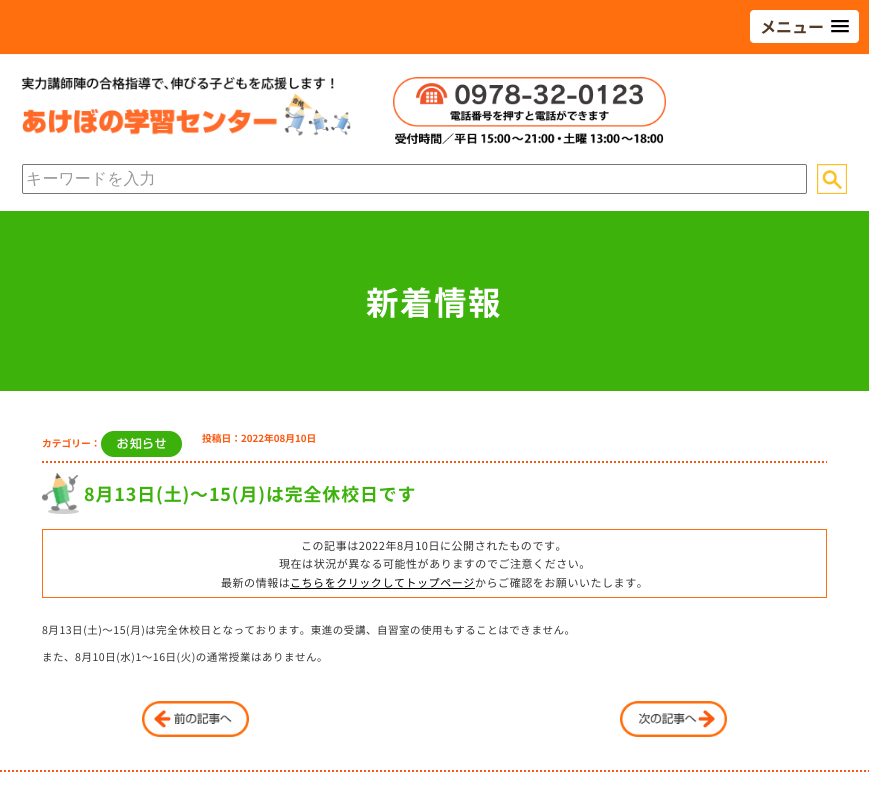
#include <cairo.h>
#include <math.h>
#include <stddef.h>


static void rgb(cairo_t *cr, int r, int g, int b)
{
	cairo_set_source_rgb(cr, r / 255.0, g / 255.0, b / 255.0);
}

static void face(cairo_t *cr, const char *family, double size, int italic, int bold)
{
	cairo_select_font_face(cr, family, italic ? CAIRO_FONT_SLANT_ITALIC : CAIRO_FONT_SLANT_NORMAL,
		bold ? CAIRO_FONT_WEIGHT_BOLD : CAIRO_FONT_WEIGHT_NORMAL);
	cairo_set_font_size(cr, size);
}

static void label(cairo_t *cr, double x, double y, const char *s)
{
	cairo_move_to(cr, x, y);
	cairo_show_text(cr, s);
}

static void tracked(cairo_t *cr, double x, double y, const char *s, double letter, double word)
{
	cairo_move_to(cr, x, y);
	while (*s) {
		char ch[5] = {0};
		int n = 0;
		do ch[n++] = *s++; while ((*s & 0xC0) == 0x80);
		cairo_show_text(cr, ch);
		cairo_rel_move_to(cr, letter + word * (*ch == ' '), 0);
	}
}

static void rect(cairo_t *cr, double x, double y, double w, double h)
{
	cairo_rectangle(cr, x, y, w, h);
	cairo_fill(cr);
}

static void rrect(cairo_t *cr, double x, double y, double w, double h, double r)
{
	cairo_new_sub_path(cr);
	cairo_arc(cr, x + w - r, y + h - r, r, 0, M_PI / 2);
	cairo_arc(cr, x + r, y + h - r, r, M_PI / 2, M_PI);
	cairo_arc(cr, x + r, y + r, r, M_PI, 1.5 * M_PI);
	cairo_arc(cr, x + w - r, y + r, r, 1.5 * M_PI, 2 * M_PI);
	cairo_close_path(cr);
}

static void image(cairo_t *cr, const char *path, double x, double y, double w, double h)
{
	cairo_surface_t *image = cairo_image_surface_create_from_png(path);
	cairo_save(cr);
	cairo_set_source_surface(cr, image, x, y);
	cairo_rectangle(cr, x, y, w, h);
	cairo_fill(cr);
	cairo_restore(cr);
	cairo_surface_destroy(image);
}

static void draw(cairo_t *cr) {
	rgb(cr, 247, 247, 247);
	cairo_paint(cr);
	rgb(cr, 255, 111, 13);
	rect(cr, 0, 0, 869, 54);
	rgb(cr, 255, 255, 255);
	rrect(cr, 750, 10, 109, 33, 4);
	cairo_fill(cr);
	face(cr, "Noto Sans JP", 16, 0, 1);
	rgb(cr, 84, 59, 39);
	label(cr, 760, 33, "メニュー");
	rgb(cr, 191, 191, 191);
	cairo_new_path(cr);
	cairo_move_to(cr, 831, 21.5);
	cairo_curve_to(cr, 830, 23.5, 834.5, 23, 834.5, 23);
	cairo_line_to(cr, 845.5, 23);
	cairo_curve_to(cr, 845.5, 23, 850, 23.5, 849, 21.5);
	cairo_curve_to(cr, 848, 22.5, 841.5, 22, 840, 22);
	cairo_curve_to(cr, 838.5, 22, 832, 22.5, 831, 21.5);
	cairo_close_path(cr);
	cairo_fill(cr);
	rgb(cr, 0, 0, 0);
	rrect(cr, 831, 20, 18, 2, 1);
	cairo_fill(cr);
	rgb(cr, 191, 191, 191);
	cairo_new_path(cr);
	cairo_move_to(cr, 831, 26.5);
	cairo_curve_to(cr, 830, 28.5, 834.5, 28, 834.5, 28);
	cairo_line_to(cr, 845.5, 28);
	cairo_curve_to(cr, 845.5, 28, 850, 28.5, 849, 26.5);
	cairo_curve_to(cr, 848, 27.5, 841.5, 27, 840, 27);
	cairo_curve_to(cr, 838.5, 27, 832, 27.5, 831, 26.5);
	cairo_close_path(cr);
	cairo_fill(cr);
	rgb(cr, 0, 0, 0);
	rrect(cr, 831, 25, 18, 2, 1);
	cairo_fill(cr);
	rgb(cr, 191, 191, 191);
	cairo_new_path(cr);
	cairo_move_to(cr, 831, 31.5);
	cairo_curve_to(cr, 830, 33.5, 834.5, 33, 834.5, 33);
	cairo_line_to(cr, 845.5, 33);
	cairo_curve_to(cr, 845.5, 33, 850, 33.5, 849, 31.5);
	cairo_curve_to(cr, 848, 32.5, 841.5, 32, 840, 32);
	cairo_curve_to(cr, 838.5, 32, 832, 32.5, 831, 31.5);
	cairo_close_path(cr);
	cairo_fill(cr);
	rgb(cr, 0, 0, 0);
	rrect(cr, 831, 30, 18, 2, 1);
	cairo_fill(cr);
	rgb(cr, 255, 255, 255);
	rect(cr, 0, 55, 869, 732);
	image(cr, "image0.png", 22, 77, 329, 59);
	image(cr, "image1.png", 393, 77, 273, 67);
	rrect(cr, 22.5, 164.5, 784, 29, 1.5);
	rgb(cr, 118, 118, 118);
	cairo_set_line_width(cr, 1);
	cairo_stroke(cr);
	face(cr, "WenQuanYi Zen Hei Medium", 16, 0, 0);
	rgb(cr, 153, 153, 153);
	label(cr, 26, 184, "キーワードを入力");
	image(cr, "image2.png", 817, 164, 30, 30);
	rgb(cr, 61, 178, 11);
	rect(cr, 0, 211, 869, 180);
	face(cr, "Noto Sans JP", 32.5, 0, 1);
	rgb(cr, 255, 255, 255);
	tracked(cr, 366, 315, "新着情報", 1.5, 0);
	cairo_new_path(cr);
	cairo_move_to(cr, 42, 462);
	cairo_line_to(cr, 827, 462);
	rgb(cr, 250, 88, 14);
	cairo_set_line_width(cr, 2);
	cairo_set_dash(cr, (double[]){2, 2}, 2, 0);
	cairo_stroke(cr);
	face(cr, "Noto Sans JP", 9.75, 0, 1);
	label(cr, 42, 447, "カテゴリー：");
	image(cr, "image3.png", 101, 431, 81, 26);
	label(cr, 202, 442, "投稿日：2022年08月10日");
	image(cr, "image4.png", 42, 473, 37, 41);
	face(cr, "Noto Sans JP", 17.9, 0, 1);
	rgb(cr, 61, 178, 11);
	tracked(cr, 84, 501, "8月13日(土)〜15(月)は完全休校日です", 0.9, 0);
	cairo_rectangle(cr, 42.5, 529.5, 784, 68);
	rgb(cr, 255, 111, 13);
	cairo_set_line_width(cr, 1);
	cairo_set_dash(cr, NULL, 0, 0);
	cairo_stroke(cr);
	face(cr, "Noto Sans JP", 11, 0, 0);
	rgb(cr, 51, 51, 51);
	tracked(cr, 301, 550, "この記事は2022年8月10日に公開されたものです。", 0.55, 0);
	tracked(cr, 279, 568, "現在は状況が異なる可能性がありますのでご注意ください。", 0.55, 0);
	tracked(cr, 221, 587, "最新の情報は", 0.55, 0);
	rgb(cr, 0, 0, 0);
	tracked(cr, 290, 587, "こちらをクリックしてトップページ", 0.55, 0);
	rect(cr, 290, 588, 185, 1);
	rgb(cr, 51, 51, 51);
	tracked(cr, 475, 587, "からご確認をお願いいたします。", 0.55, 0);
	face(cr, "Noto Sans JP", 10.5, 0, 0);
	tracked(cr, 42, 634, "8月13日(土)〜15(月)は完全休校日となっております。東進の受講、自習室の使用もすることはできません。", 0.53, 0);
	tracked(cr, 42, 661, "また、8月10日(水)1〜16日(火)の通常授業はありません。", 0.53, 0);
	image(cr, "image5.png", 142, 701, 107, 36);
	image(cr, "image6.png", 620, 701, 107, 36);
	cairo_new_path(cr);
	cairo_move_to(cr, 0, 771);
	cairo_line_to(cr, 869, 771);
	rgb(cr, 250, 88, 14);
	cairo_set_line_width(cr, 2);
	cairo_set_dash(cr, (double[]){2, 2}, 2, 0);
	cairo_stroke(cr);
}

int main(void) {
	cairo_surface_t *surface = cairo_image_surface_create(CAIRO_FORMAT_RGB24, 869, 787);
	cairo_t *cr = cairo_create(surface);
	cairo_font_options_t *options = cairo_font_options_create();
	cairo_font_options_set_hint_metrics(options, CAIRO_HINT_METRICS_OFF);
	cairo_font_options_set_hint_style(options, CAIRO_HINT_STYLE_NONE);
	cairo_set_font_options(cr, options);
	cairo_set_miter_limit(cr, 4);
	draw(cr);
	cairo_surface_write_to_png(surface, "render.png");
	cairo_font_options_destroy(options);
	cairo_destroy(cr);
	cairo_surface_destroy(surface);
	return 0;
}
